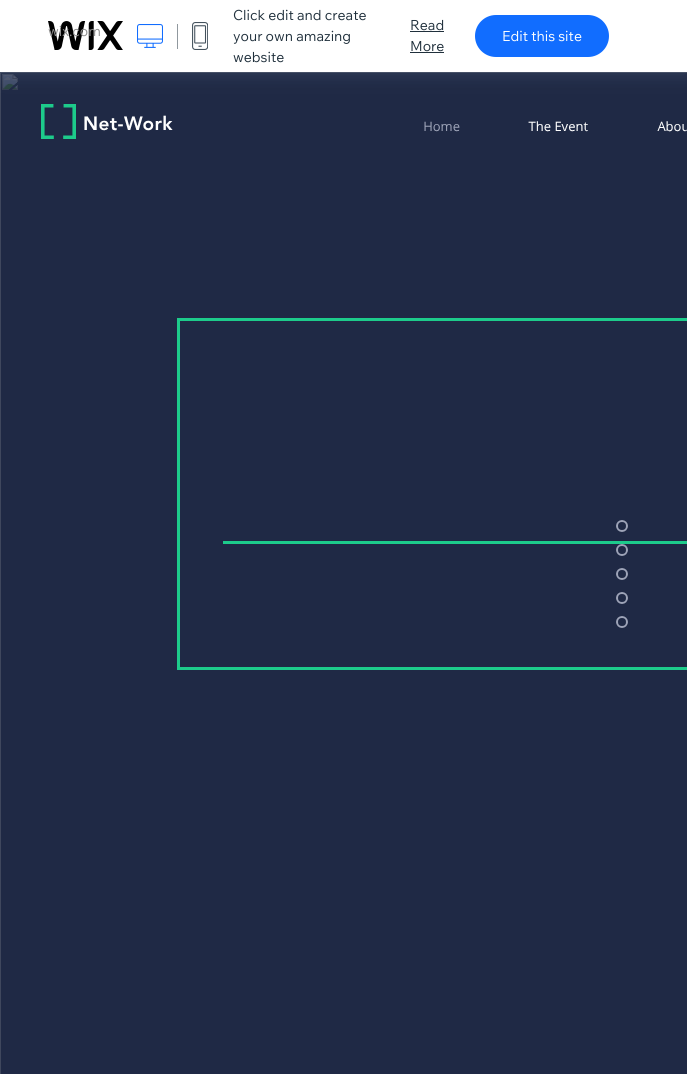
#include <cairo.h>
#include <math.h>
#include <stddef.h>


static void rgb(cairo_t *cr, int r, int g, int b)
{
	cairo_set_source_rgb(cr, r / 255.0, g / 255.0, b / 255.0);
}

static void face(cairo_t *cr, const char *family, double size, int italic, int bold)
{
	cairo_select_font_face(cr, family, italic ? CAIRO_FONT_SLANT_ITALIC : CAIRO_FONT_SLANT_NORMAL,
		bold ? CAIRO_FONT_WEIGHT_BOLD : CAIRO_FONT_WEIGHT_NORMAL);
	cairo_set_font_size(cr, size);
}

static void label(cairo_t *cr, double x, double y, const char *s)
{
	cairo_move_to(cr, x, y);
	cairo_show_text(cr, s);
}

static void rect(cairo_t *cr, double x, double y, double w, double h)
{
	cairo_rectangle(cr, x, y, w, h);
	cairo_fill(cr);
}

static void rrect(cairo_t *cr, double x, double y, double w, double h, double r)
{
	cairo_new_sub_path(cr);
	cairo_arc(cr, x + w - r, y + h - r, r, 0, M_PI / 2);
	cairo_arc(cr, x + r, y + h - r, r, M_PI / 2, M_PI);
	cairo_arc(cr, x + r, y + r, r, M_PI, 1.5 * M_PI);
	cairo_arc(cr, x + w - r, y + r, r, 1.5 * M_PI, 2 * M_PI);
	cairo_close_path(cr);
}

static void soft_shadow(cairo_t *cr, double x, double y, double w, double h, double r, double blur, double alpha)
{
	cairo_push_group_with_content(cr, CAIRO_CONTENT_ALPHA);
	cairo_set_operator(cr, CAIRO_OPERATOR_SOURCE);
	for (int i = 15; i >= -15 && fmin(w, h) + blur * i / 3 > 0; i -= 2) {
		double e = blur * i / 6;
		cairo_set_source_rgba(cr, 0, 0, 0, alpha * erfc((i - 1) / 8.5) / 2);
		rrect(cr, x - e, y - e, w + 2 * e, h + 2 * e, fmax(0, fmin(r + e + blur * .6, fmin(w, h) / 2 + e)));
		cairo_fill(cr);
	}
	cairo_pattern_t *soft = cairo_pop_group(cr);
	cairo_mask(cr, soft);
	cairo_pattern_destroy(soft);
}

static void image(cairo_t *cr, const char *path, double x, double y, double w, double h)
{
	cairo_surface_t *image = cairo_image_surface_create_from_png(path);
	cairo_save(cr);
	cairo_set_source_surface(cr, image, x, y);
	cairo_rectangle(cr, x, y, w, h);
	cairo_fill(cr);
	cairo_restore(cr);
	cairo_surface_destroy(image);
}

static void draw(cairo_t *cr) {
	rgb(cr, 255, 255, 255);
	cairo_paint(cr);
	image(cr, "image3.png", 0, 72, 687, 1002);
	rgb(cr, 129, 162, 182);
	soft_shadow(cr, 0, 2, 687, 72, 0, 9, 0.2);
	rgb(cr, 255, 255, 255);
	rect(cr, 0, 0, 687, 72);
	image(cr, "image0.png", 48, 21, 75, 29);
	face(cr, "Wix Madefor Text", 14, 0, 0);
	rgb(cr, 143, 143, 143);
	label(cr, 48, 36, "wix.com");
	image(cr, "image1.png", 137, 24, 26, 24);
	rgb(cr, 144, 152, 158);
	rect(cr, 177, 24, 1, 25);
	image(cr, "image2.png", 192, 22, 16, 28);
	rgb(cr, 32, 48, 60);
	label(cr, 233, 20, "Click edit and create");
	label(cr, 233, 41, "your own amazing");
	label(cr, 233, 62, "website");
	label(cr, 410, 30, "Read");
	rect(cr, 410, 31, 34, 1);
	label(cr, 410, 51, "More");
	rect(cr, 410, 52, 34, 1);
	rgb(cr, 17, 109, 255);
	rrect(cr, 475, 15, 134, 42, 21);
	cairo_fill(cr);
	rgb(cr, 255, 255, 255);
	label(cr, 502, 41, "Edit this site");
}

int main(void) {
	cairo_surface_t *surface = cairo_image_surface_create(CAIRO_FORMAT_RGB24, 687, 1074);
	cairo_t *cr = cairo_create(surface);
	cairo_font_options_t *options = cairo_font_options_create();
	cairo_font_options_set_hint_metrics(options, CAIRO_HINT_METRICS_OFF);
	cairo_font_options_set_hint_style(options, CAIRO_HINT_STYLE_NONE);
	cairo_set_font_options(cr, options);
	cairo_set_miter_limit(cr, 4);
	draw(cr);
	cairo_surface_write_to_png(surface, "render.png");
	cairo_font_options_destroy(options);
	cairo_destroy(cr);
	cairo_surface_destroy(surface);
	return 0;
}
